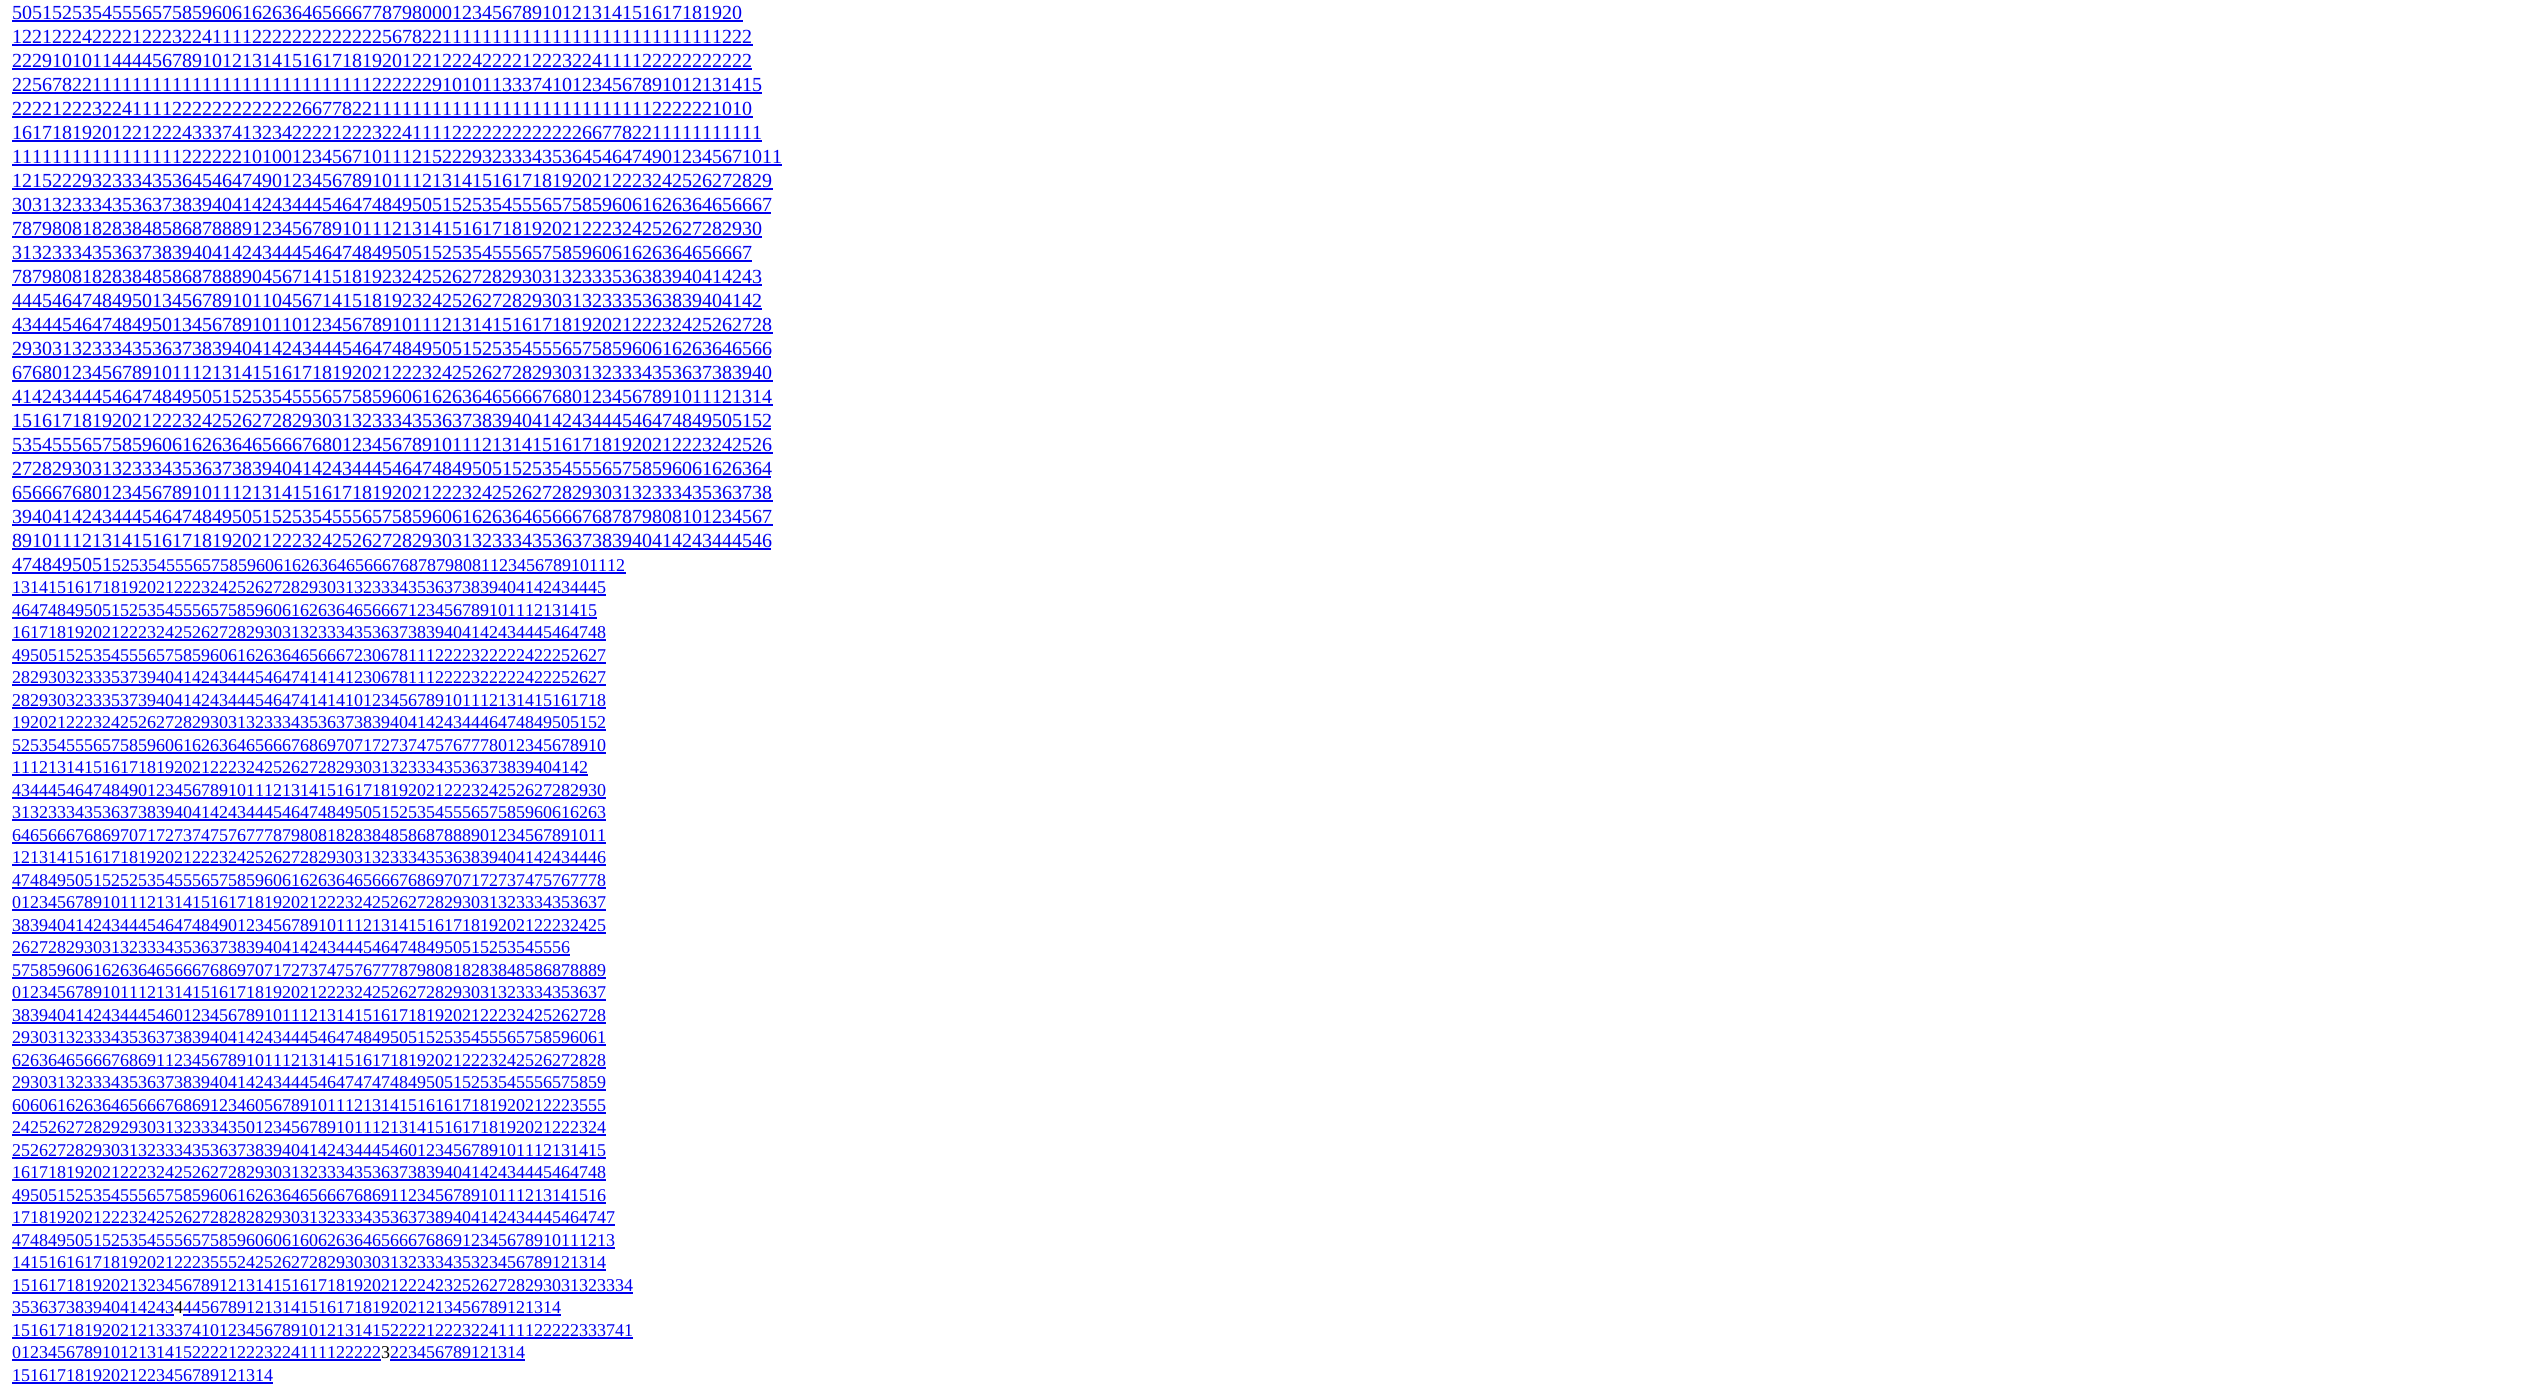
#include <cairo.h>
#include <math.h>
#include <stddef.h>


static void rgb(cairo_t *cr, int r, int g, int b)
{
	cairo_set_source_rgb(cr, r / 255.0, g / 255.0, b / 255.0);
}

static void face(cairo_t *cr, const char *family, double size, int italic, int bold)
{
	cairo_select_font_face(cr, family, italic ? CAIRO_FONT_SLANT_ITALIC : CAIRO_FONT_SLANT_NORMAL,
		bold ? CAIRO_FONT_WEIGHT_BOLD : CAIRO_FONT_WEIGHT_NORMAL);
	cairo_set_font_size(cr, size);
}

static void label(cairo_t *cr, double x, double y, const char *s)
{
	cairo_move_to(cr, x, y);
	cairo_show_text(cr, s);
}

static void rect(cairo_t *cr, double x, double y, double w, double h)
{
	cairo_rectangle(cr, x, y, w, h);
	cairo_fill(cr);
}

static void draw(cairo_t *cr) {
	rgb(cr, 255, 255, 255);
	cairo_paint(cr);
	face(cr, "Liberation Serif", 20, 0, 0);
	rgb(cr, 0, 0, 238);
	label(cr, 12, 19, "5051525354555657585960616263646566677879800012345678910121314151617181920");
	rect(cr, 12, 20, 731, 2);
	label(cr, 12, 43, "122122242222122232241111222222222222256782211111111");
	rect(cr, 12, 44, 741, 2);
	label(cr, 522, 43, "11111111111111111111222");
	label(cr, 12, 67, "22291010114444567891012131415161718192012212224222212223224111122222222222");
	rect(cr, 12, 68, 740, 2);
	label(cr, 12, 91, "225678221111111111111111111111111111222");
	rect(cr, 12, 92, 750, 2);
	label(cr, 402, 91, "222910101133374101234567891012131415");
	label(cr, 12, 115, "222212223224111122222222222226677822111");
	rect(cr, 12, 116, 741, 2);
	label(cr, 402, 115, "11111111111111111111111112222221010");
	label(cr, 12, 139, "161718192012212224333741323422221222322411112222222222222667782211111111111");
	rect(cr, 12, 140, 750, 2);
	label(cr, 12, 163, "11111111111111111222222101001234567101112152229323334353645464749012345671011");
	rect(cr, 12, 164, 770, 2);
	label(cr, 12, 187, "1215222932333435364546474901234567891011121314151617181920212223242526272829");
	rect(cr, 12, 188, 761, 2);
	label(cr, 12, 211, "3031323334353637383940414243444546474849505152535455565758596061626364656667");
	rect(cr, 12, 212, 759, 2);
	label(cr, 12, 235, "787980818283848586878889123456789101112131415161718192021222324252627282930");
	rect(cr, 12, 236, 750, 2);
	label(cr, 12, 259, "31323334353637383940414243444546474849505152535455565758596061626364656667");
	rect(cr, 12, 260, 740, 2);
	label(cr, 12, 283, "787980818283848586878889045671415181923242526272829303132333536383940414243");
	rect(cr, 12, 284, 750, 2);
	label(cr, 12, 307, "444546474849501345678910110456714151819232425262728293031323335363839404142");
	rect(cr, 12, 308, 750, 2);
	label(cr, 12, 331, "4344454647484950134567891011012345678910111213141516171819202122232425262728");
	rect(cr, 12, 332, 761, 2);
	label(cr, 12, 355, "2930313233343536373839404142434445464748495051525354555657585960616263646566");
	rect(cr, 12, 356, 759, 2);
	label(cr, 12, 379, "6768012345678910111213141516171819202122232425262728293031323334353637383940");
	rect(cr, 12, 380, 761, 2);
	label(cr, 12, 403, "4142434445464748495051525354555657585960616263646566676801234567891011121314");
	rect(cr, 12, 404, 761, 2);
	label(cr, 12, 427, "1516171819202122232425262728293031323334353637383940414243444546474849505152");
	rect(cr, 12, 428, 759, 2);
	label(cr, 12, 451, "5354555657585960616263646566676801234567891011121314151617181920212223242526");
	rect(cr, 12, 452, 761, 2);
	label(cr, 12, 475, "2728293031323334353637383940414243444546474849505152535455565758596061626364");
	rect(cr, 12, 476, 759, 2);
	label(cr, 12, 499, "6566676801234567891011121314151617181920212223242526272829303132333435363738");
	rect(cr, 12, 500, 761, 2);
	label(cr, 12, 523, "3940414243444546474849505152535455565758596061626364656667687879808101234567");
	rect(cr, 12, 524, 761, 2);
	label(cr, 12, 547, "8910111213141516171819202122232425262728293031323334353637383940414243444546");
	rect(cr, 12, 548, 759, 2);
	label(cr, 12, 571, "4748495051");
	face(cr, "Liberation Serif", 18, 0, 0);
	label(cr, 112, 571, "525354555657585960616263646566676878798081123456789101112");
	rect(cr, 12, 572, 614, 2);
	label(cr, 12, 593, "131415161718192021222324252627282930313233343536373839404142434445");
	rect(cr, 12, 594, 594, 2);
	label(cr, 12, 616, "46474849505152535455565758596061626364656667123456789101112131415");
	rect(cr, 12, 617, 585, 2);
	label(cr, 12, 638, "161718192021222324252627282930313233343536373839404142434445464748");
	rect(cr, 12, 639, 594, 2);
	label(cr, 12, 661, "495051525354555657585960616263646566672306781112222322222422252627");
	rect(cr, 12, 662, 594, 2);
	label(cr, 12, 683, "282930323335373940414243444546474141412306781112222322222422252627");
	rect(cr, 12, 684, 594, 2);
	label(cr, 12, 706, "282930323335373940414243444546474141410123456789101112131415161718");
	rect(cr, 12, 707, 594, 2);
	label(cr, 12, 728, "192021222324252627282930313233343536373839404142434446474849505152");
	rect(cr, 12, 729, 594, 2);
	label(cr, 12, 751, "525354555657585960616263646566676869707172737475767778012345678910");
	rect(cr, 12, 752, 594, 2);
	label(cr, 12, 773, "1112131415161718192021222324252627282930313233343536373839404142");
	rect(cr, 12, 774, 576, 2);
	label(cr, 12, 796, "434445464748490123456789101112131415161718192021222324252627282930");
	rect(cr, 12, 797, 594, 2);
	label(cr, 12, 818, "313233343536373839404142434445464748495051525354555657585960616263");
	rect(cr, 12, 819, 594, 2);
	label(cr, 12, 841, "646566676869707172737475767778798081828384858687888901234567891011");
	rect(cr, 12, 842, 594, 2);
	label(cr, 12, 863, "121314151617181920212223242526272829303132333435363839404142434446");
	rect(cr, 12, 864, 594, 2);
	label(cr, 12, 886, "474849505152525354555657585960616263646566676869707172737475767778");
	rect(cr, 12, 887, 594, 2);
	label(cr, 12, 908, "012345678910111213141516171819202122232425262728293031323334353637");
	rect(cr, 12, 909, 594, 2);
	label(cr, 12, 931, "383940414243444546474849012345678910111213141516171819202122232425");
	rect(cr, 12, 932, 594, 2);
	label(cr, 12, 953, "26272829303132333435363738394041424344454647484950515253545556");
	rect(cr, 12, 954, 558, 2);
	label(cr, 12, 976, "575859606162636465666768697071727374757677787980818283848586878889");
	rect(cr, 12, 977, 594, 2);
	label(cr, 12, 998, "012345678910111213141516171819202122232425262728293031323334353637");
	rect(cr, 12, 999, 594, 2);
	label(cr, 12, 1021, "383940414243444546012345678910111213141516171819202122232425262728");
	rect(cr, 12, 1022, 594, 2);
	label(cr, 12, 1043, "293031323334353637383940414243444546474849505152535455565758596061");
	rect(cr, 12, 1044, 594, 2);
	label(cr, 12, 1066, "626364656667686911234567891011121314151617181920212223242526272828");
	rect(cr, 12, 1067, 594, 2);
	label(cr, 12, 1088, "293031323334353637383940414243444546474747484950515253545556575859");
	rect(cr, 12, 1089, 594, 2);
	label(cr, 12, 1111, "606061626364656667686912346056789101112131415161617181920212223555");
	rect(cr, 12, 1112, 594, 2);
	label(cr, 12, 1133, "242526272829293031323334350123456789101112131415161718192021222324");
	rect(cr, 12, 1134, 594, 2);
	label(cr, 12, 1156, "252627282930313233343536373839404142434445460123456789101112131415");
	rect(cr, 12, 1157, 594, 2);
	label(cr, 12, 1178, "161718192021222324252627282930313233343536373839404142434445464748");
	rect(cr, 12, 1179, 594, 2);
	label(cr, 12, 1201, "495051525354555657585960616263646566676869112345678910111213141516");
	rect(cr, 12, 1202, 594, 2);
	label(cr, 12, 1223, "1718192021222324252627282828293031323334353637389404142434445464747");
	rect(cr, 12, 1224, 603, 2);
	label(cr, 12, 1246, "4748495051525354555657585960606160626364656667686912345678910111213");
	rect(cr, 12, 1247, 603, 2);
	label(cr, 12, 1268, "141516161718192021222355524252627282930303132333435323456789121314");
	rect(cr, 12, 1269, 594, 2);
	label(cr, 12, 1291, "151617181920213234567891213141516171819202122242325262728293031323334");
	rect(cr, 12, 1292, 621, 2);
	label(cr, 12, 1313, "353637383940414243");
	rect(cr, 12, 1314, 162, 2);
	rgb(cr, 0, 0, 0);
	label(cr, 174, 1313, "4");
	rgb(cr, 0, 0, 238);
	label(cr, 183, 1313, "445678912131415161718192021213456789121314");
	rect(cr, 183, 1314, 378, 2);
	label(cr, 12, 1336, "151617181920212133374101234567891012131415222212223224111122222333741");
	rect(cr, 12, 1337, 621, 2);
	label(cr, 12, 1358, "01234567891012131415222212223224111122222");
	rect(cr, 12, 1359, 369, 2);
	rgb(cr, 0, 0, 0);
	label(cr, 381, 1358, "3");
	rgb(cr, 0, 0, 238);
	rect(cr, 390, 1359, 135, 2);
	label(cr, 390, 1358, "223456789121314");
	label(cr, 12, 1381, "15161718192021223456789121314");
	rect(cr, 12, 1382, 261, 2);
}

int main(void) {
	cairo_surface_t *surface = cairo_image_surface_create(CAIRO_FORMAT_RGB24, 2539, 1393);
	cairo_t *cr = cairo_create(surface);
	cairo_font_options_t *options = cairo_font_options_create();
	cairo_font_options_set_hint_metrics(options, CAIRO_HINT_METRICS_OFF);
	cairo_font_options_set_hint_style(options, CAIRO_HINT_STYLE_NONE);
	cairo_set_font_options(cr, options);
	cairo_set_miter_limit(cr, 4);
	draw(cr);
	cairo_surface_write_to_png(surface, "render.png");
	cairo_font_options_destroy(options);
	cairo_destroy(cr);
	cairo_surface_destroy(surface);
	return 0;
}
